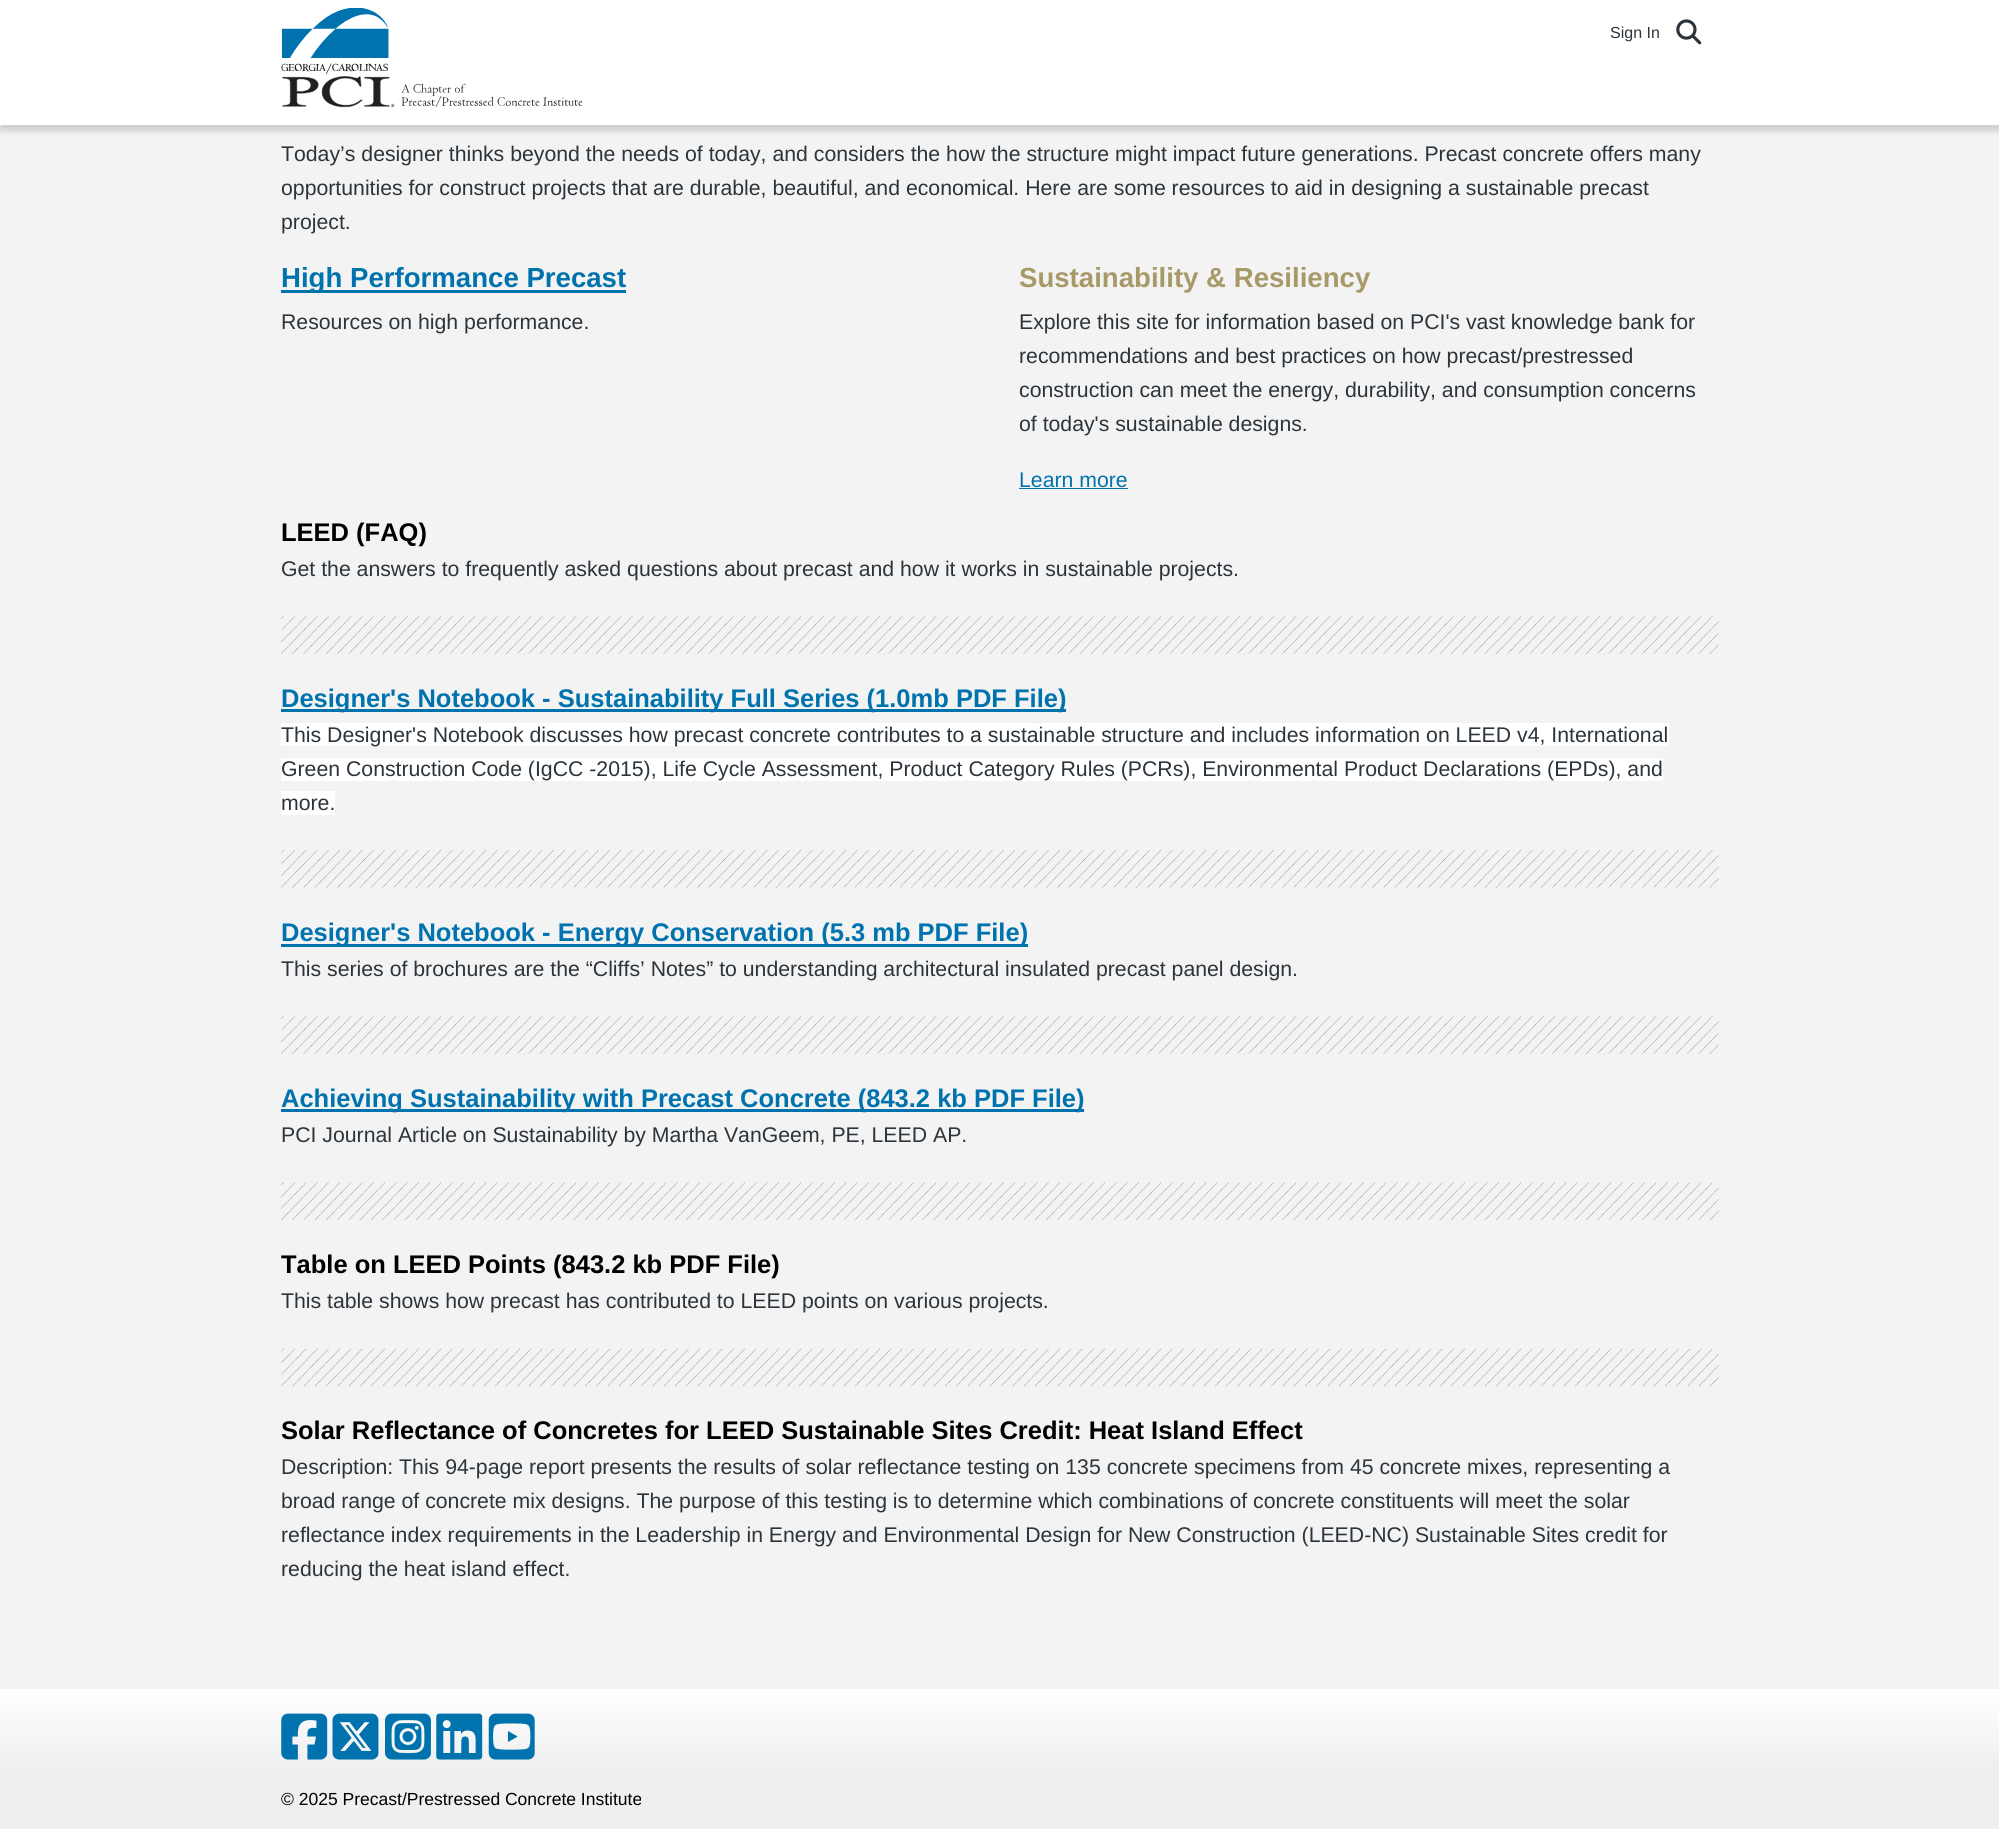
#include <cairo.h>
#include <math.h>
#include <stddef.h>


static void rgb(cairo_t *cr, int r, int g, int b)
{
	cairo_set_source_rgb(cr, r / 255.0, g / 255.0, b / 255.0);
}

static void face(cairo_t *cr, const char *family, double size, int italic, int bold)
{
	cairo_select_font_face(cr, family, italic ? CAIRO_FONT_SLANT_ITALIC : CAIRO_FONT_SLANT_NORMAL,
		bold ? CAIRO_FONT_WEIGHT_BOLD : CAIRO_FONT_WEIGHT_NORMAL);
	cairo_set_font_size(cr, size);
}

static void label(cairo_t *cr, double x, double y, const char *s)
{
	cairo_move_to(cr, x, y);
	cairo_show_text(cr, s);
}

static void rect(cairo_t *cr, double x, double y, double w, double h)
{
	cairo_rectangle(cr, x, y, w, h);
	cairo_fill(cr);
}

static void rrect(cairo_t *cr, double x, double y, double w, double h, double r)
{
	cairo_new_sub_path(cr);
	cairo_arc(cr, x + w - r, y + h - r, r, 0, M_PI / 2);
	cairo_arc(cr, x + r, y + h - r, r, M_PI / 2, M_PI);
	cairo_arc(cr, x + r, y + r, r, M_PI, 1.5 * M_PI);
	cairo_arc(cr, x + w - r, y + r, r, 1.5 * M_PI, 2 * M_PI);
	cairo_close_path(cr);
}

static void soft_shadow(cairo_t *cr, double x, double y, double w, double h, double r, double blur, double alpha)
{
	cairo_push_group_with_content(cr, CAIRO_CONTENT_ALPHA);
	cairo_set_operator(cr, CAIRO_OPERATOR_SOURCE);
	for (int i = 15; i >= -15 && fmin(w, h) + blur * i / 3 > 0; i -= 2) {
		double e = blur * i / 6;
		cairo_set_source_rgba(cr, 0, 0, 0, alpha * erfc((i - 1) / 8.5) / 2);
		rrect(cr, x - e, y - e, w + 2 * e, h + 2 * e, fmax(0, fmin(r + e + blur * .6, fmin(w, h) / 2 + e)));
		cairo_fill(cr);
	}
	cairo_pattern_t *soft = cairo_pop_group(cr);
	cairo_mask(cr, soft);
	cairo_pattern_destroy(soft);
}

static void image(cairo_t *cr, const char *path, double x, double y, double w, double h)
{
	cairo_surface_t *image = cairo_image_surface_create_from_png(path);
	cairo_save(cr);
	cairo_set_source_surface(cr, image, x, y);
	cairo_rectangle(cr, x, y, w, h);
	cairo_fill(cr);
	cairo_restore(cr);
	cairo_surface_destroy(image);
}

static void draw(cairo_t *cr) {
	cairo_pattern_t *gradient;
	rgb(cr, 243, 243, 243);
	cairo_paint(cr);
	rgb(cr, 0, 0, 0);
	soft_shadow(cr, 0, 6, 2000, 125, 0, 3, 0.15);
	rgb(cr, 255, 255, 255);
	rect(cr, 0, 0, 1999, 125);
	image(cr, "image0.png", 281, 8, 302, 100);
	face(cr, "Liberation Sans", 16, 0, 0);
	rgb(cr, 44, 52, 59);
	label(cr, 1610, 38, "Sign In");
	image(cr, "image1.png", 1676, 19, 26, 26);
	face(cr, "Liberation Sans", 21.25, 0, 0);
	label(cr, 281, 161, "Today’s designer thinks beyond the needs of today, and considers the how the structure might impact future generations. Precast concrete offers many");
	label(cr, 281, 195, "opportunities for construct projects that are durable, beautiful, and economical. Here are some resources to aid in designing a sustainable precast");
	label(cr, 281, 229, "project.");
	rgb(cr, 0, 115, 174);
	rect(cr, 281, 290, 345, 3);
	face(cr, "Liberation Sans", 27.6, 0, 1);
	label(cr, 281, 287, "High Performance Precast");
	face(cr, "Liberation Sans", 21.25, 0, 0);
	rgb(cr, 44, 52, 59);
	label(cr, 281, 329, "Resources on high performance.");
	face(cr, "Liberation Sans", 27.6, 0, 1);
	rgb(cr, 168, 153, 104);
	label(cr, 1019, 287, "Sustainability & Resiliency");
	face(cr, "Liberation Sans", 21.25, 0, 0);
	rgb(cr, 44, 52, 59);
	label(cr, 1019, 329, "Explore this site for information based on PCI's vast knowledge bank for");
	label(cr, 1019, 363, "recommendations and best practices on how precast/prestressed");
	label(cr, 1019, 397, "construction can meet the energy, durability, and consumption concerns");
	label(cr, 1019, 431, "of today's sustainable designs.");
	rgb(cr, 0, 115, 174);
	label(cr, 1019, 487, "Learn more");
	rect(cr, 1019, 488, 109, 1);
	face(cr, "Liberation Sans", 25.5, 0, 1);
	rgb(cr, 0, 0, 0);
	label(cr, 281, 541, "LEED (FAQ)");
	face(cr, "Liberation Sans", 21.25, 0, 0);
	rgb(cr, 44, 52, 59);
	label(cr, 281, 576, "Get the answers to frequently asked questions about precast and how it works in sustainable projects.");
	image(cr, "image2.png", 281, 616, 1438, 38);
	rgb(cr, 0, 115, 174);
	rect(cr, 281, 709, 785, 3);
	face(cr, "Liberation Sans", 25.5, 0, 1);
	label(cr, 281, 707, "Designer's Notebook - Sustainability Full Series (1.0mb PDF File)");
	rgb(cr, 255, 255, 255);
	rect(cr, 281, 723, 1388, 23);
	face(cr, "Liberation Sans", 21.25, 0, 0);
	rgb(cr, 44, 52, 59);
	label(cr, 281, 742, "This Designer's Notebook discusses how precast concrete contributes to a sustainable structure and includes information on LEED v4, International");
	rgb(cr, 255, 255, 255);
	rect(cr, 281, 758, 1382, 23);
	rgb(cr, 44, 52, 59);
	label(cr, 281, 776, "Green Construction Code (IgCC -2015), Life Cycle Assessment, Product Category Rules (PCRs), Environmental Product Declarations (EPDs), and");
	rgb(cr, 255, 255, 255);
	rect(cr, 281, 791, 54, 24);
	rgb(cr, 44, 52, 59);
	label(cr, 281, 810, "more.");
	image(cr, "image3.png", 281, 850, 1438, 38);
	rgb(cr, 0, 115, 174);
	rect(cr, 281, 944, 747, 3);
	face(cr, "Liberation Sans", 25.5, 0, 1);
	label(cr, 281, 941, "Designer's Notebook - Energy Conservation (5.3 mb PDF File)");
	face(cr, "Liberation Sans", 21.25, 0, 0);
	rgb(cr, 44, 52, 59);
	label(cr, 281, 976, "This series of brochures are the “Cliffs’ Notes” to understanding architectural insulated precast panel design.");
	image(cr, "image2.png", 281, 1016, 1438, 38);
	rgb(cr, 0, 115, 174);
	rect(cr, 281, 1109, 803, 3);
	face(cr, "Liberation Sans", 25.5, 0, 1);
	label(cr, 281, 1107, "Achieving Sustainability with Precast Concrete (843.2 kb PDF File)");
	face(cr, "Liberation Sans", 21.25, 0, 0);
	rgb(cr, 44, 52, 59);
	label(cr, 281, 1142, "PCI Journal Article on Sustainability by Martha VanGeem, PE, LEED AP.");
	image(cr, "image4.png", 281, 1182, 1438, 38);
	face(cr, "Liberation Sans", 25.5, 0, 1);
	rgb(cr, 0, 0, 0);
	label(cr, 281, 1273, "Table on LEED Points (843.2 kb PDF File)");
	face(cr, "Liberation Sans", 21.25, 0, 0);
	rgb(cr, 44, 52, 59);
	label(cr, 281, 1308, "This table shows how precast has contributed to LEED points on various projects.");
	image(cr, "image5.png", 281, 1348, 1438, 39);
	face(cr, "Liberation Sans", 25.5, 0, 1);
	rgb(cr, 0, 0, 0);
	label(cr, 281, 1439, "Solar Reflectance of Concretes for LEED Sustainable Sites Credit: Heat Island Effect");
	face(cr, "Liberation Sans", 21.25, 0, 0);
	rgb(cr, 44, 52, 59);
	label(cr, 281, 1474, "Description: This 94-page report presents the results of solar reflectance testing on 135 concrete specimens from 45 concrete mixes, representing a");
	label(cr, 281, 1508, "broad range of concrete mix designs. The purpose of this testing is to determine which combinations of concrete constituents will meet the solar");
	label(cr, 281, 1542, "reflectance index requirements in the Leadership in Energy and Environmental Design for New Construction (LEED-NC) Sustainable Sites credit for");
	label(cr, 281, 1576, "reducing the heat island effect.");
	gradient = cairo_pattern_create_linear(1000, 1689, 1000, 1768);
	cairo_pattern_add_color_stop_rgba(gradient, 0, 1, 1, 1, 1);
	cairo_pattern_add_color_stop_rgba(gradient, 1, 0.937, 0.937, 0.937, 1);
	cairo_set_source(cr, gradient);
	cairo_pattern_destroy(gradient);
	rect(cr, 0, 1689, 1999, 79);
	image(cr, "image6.png", 281, 1713, 47, 47);
	image(cr, "image7.png", 332, 1713, 47, 47);
	image(cr, "image8.png", 385, 1713, 46, 47);
	image(cr, "image9.png", 436, 1713, 47, 47);
	image(cr, "image10.png", 488, 1713, 47, 47);
	rgb(cr, 239, 239, 239);
	rect(cr, 0, 1768, 1999, 61);
	face(cr, "Liberation Sans", 17.5, 0, 0);
	rgb(cr, 0, 0, 0);
	label(cr, 281, 1805, "© 2025 Precast/Prestressed Concrete Institute");
}

int main(void) {
	cairo_surface_t *surface = cairo_image_surface_create(CAIRO_FORMAT_RGB24, 1999, 1829);
	cairo_t *cr = cairo_create(surface);
	cairo_font_options_t *options = cairo_font_options_create();
	cairo_font_options_set_hint_metrics(options, CAIRO_HINT_METRICS_OFF);
	cairo_font_options_set_hint_style(options, CAIRO_HINT_STYLE_NONE);
	cairo_set_font_options(cr, options);
	cairo_set_miter_limit(cr, 4);
	draw(cr);
	cairo_surface_write_to_png(surface, "render.png");
	cairo_font_options_destroy(options);
	cairo_destroy(cr);
	cairo_surface_destroy(surface);
	return 0;
}
